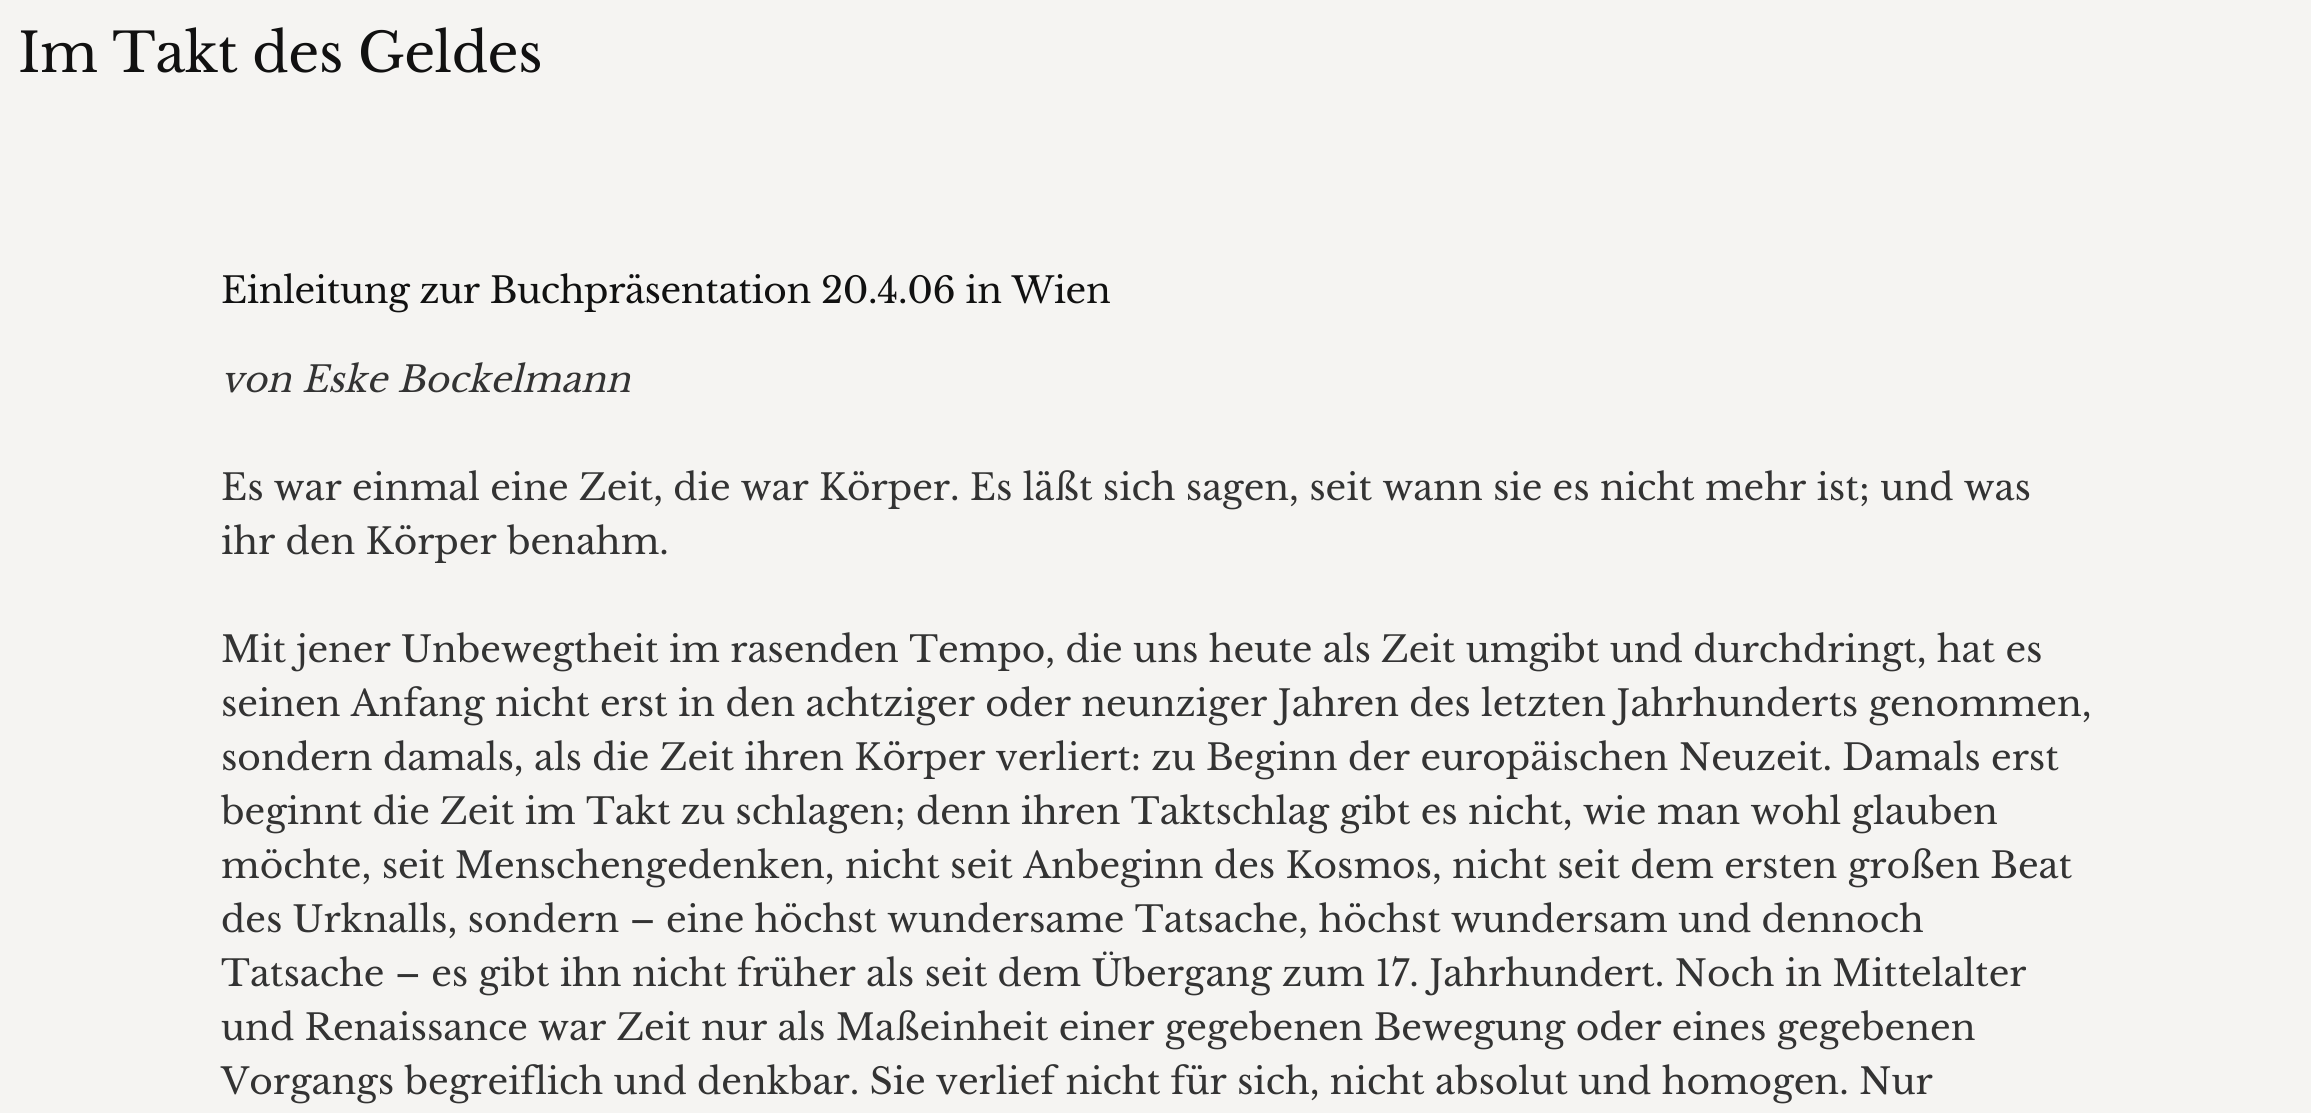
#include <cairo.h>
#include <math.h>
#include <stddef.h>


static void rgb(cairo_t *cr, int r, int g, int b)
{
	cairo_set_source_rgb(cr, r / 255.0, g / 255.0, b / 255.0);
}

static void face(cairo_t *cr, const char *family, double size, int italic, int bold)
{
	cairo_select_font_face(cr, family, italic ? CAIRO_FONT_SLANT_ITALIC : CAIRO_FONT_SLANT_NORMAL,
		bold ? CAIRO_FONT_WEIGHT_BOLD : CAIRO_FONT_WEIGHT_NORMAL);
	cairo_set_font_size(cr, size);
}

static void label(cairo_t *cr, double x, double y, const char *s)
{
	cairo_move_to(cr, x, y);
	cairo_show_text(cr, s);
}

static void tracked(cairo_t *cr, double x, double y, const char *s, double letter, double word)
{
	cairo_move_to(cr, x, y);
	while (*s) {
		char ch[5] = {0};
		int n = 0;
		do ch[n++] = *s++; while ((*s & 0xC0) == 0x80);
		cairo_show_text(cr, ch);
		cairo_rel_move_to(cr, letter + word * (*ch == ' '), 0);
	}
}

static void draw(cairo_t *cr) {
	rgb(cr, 245, 244, 242);
	cairo_paint(cr);
	face(cr, "Libre Baskerville", 54, 0, 0);
	rgb(cr, 17, 17, 17);
	tracked(cr, 18, 72, "Im Takt des Geldes", -0.5, 0);
	face(cr, "Libre Baskerville", 36, 0, 0);
	tracked(cr, 221, 303, "Einleitung zur Buchpräsentation 20.4.06 in Wien", -0.35, 0);
	face(cr, "Libre Baskerville", 36, 1, 0);
	rgb(cr, 51, 51, 51);
	label(cr, 221, 392, "von Eske Bockelmann");
	face(cr, "Libre Baskerville", 36, 0, 0);
	label(cr, 221, 500, "Es war einmal eine Zeit, die war Körper. Es läßt sich sagen, seit wann sie es nicht mehr ist; und was");
	label(cr, 221, 554, "ihr den Körper benahm.");
	label(cr, 221, 662, "Mit jener Unbewegtheit im rasenden Tempo, die uns heute als Zeit umgibt und durchdringt, hat es");
	label(cr, 221, 716, "seinen Anfang nicht erst in den achtziger oder neunziger Jahren des letzten Jahrhunderts genommen,");
	label(cr, 221, 770, "sondern damals, als die Zeit ihren Körper verliert: zu Beginn der europäischen Neuzeit. Damals erst");
	label(cr, 221, 824, "beginnt die Zeit im Takt zu schlagen; denn ihren Taktschlag gibt es nicht, wie man wohl glauben");
	label(cr, 221, 878, "möchte, seit Menschengedenken, nicht seit Anbeginn des Kosmos, nicht seit dem ersten großen Beat");
	label(cr, 221, 932, "des Urknalls, sondern – eine höchst wundersame Tatsache, höchst wundersam und dennoch");
	label(cr, 221, 986, "Tatsache – es gibt ihn nicht früher als seit dem Übergang zum 17. Jahrhundert. Noch in Mittelalter");
	label(cr, 221, 1040, "und Renaissance war Zeit nur als Maßeinheit einer gegebenen Bewegung oder eines gegebenen");
	label(cr, 221, 1094, "Vorgangs begreiflich und denkbar. Sie verlief nicht für sich, nicht absolut und homogen. Nur");
}

int main(void) {
	cairo_surface_t *surface = cairo_image_surface_create(CAIRO_FORMAT_RGB24, 2311, 1113);
	cairo_t *cr = cairo_create(surface);
	cairo_font_options_t *options = cairo_font_options_create();
	cairo_font_options_set_hint_metrics(options, CAIRO_HINT_METRICS_OFF);
	cairo_font_options_set_hint_style(options, CAIRO_HINT_STYLE_NONE);
	cairo_set_font_options(cr, options);
	cairo_set_miter_limit(cr, 4);
	draw(cr);
	cairo_surface_write_to_png(surface, "render.png");
	cairo_font_options_destroy(options);
	cairo_destroy(cr);
	cairo_surface_destroy(surface);
	return 0;
}
